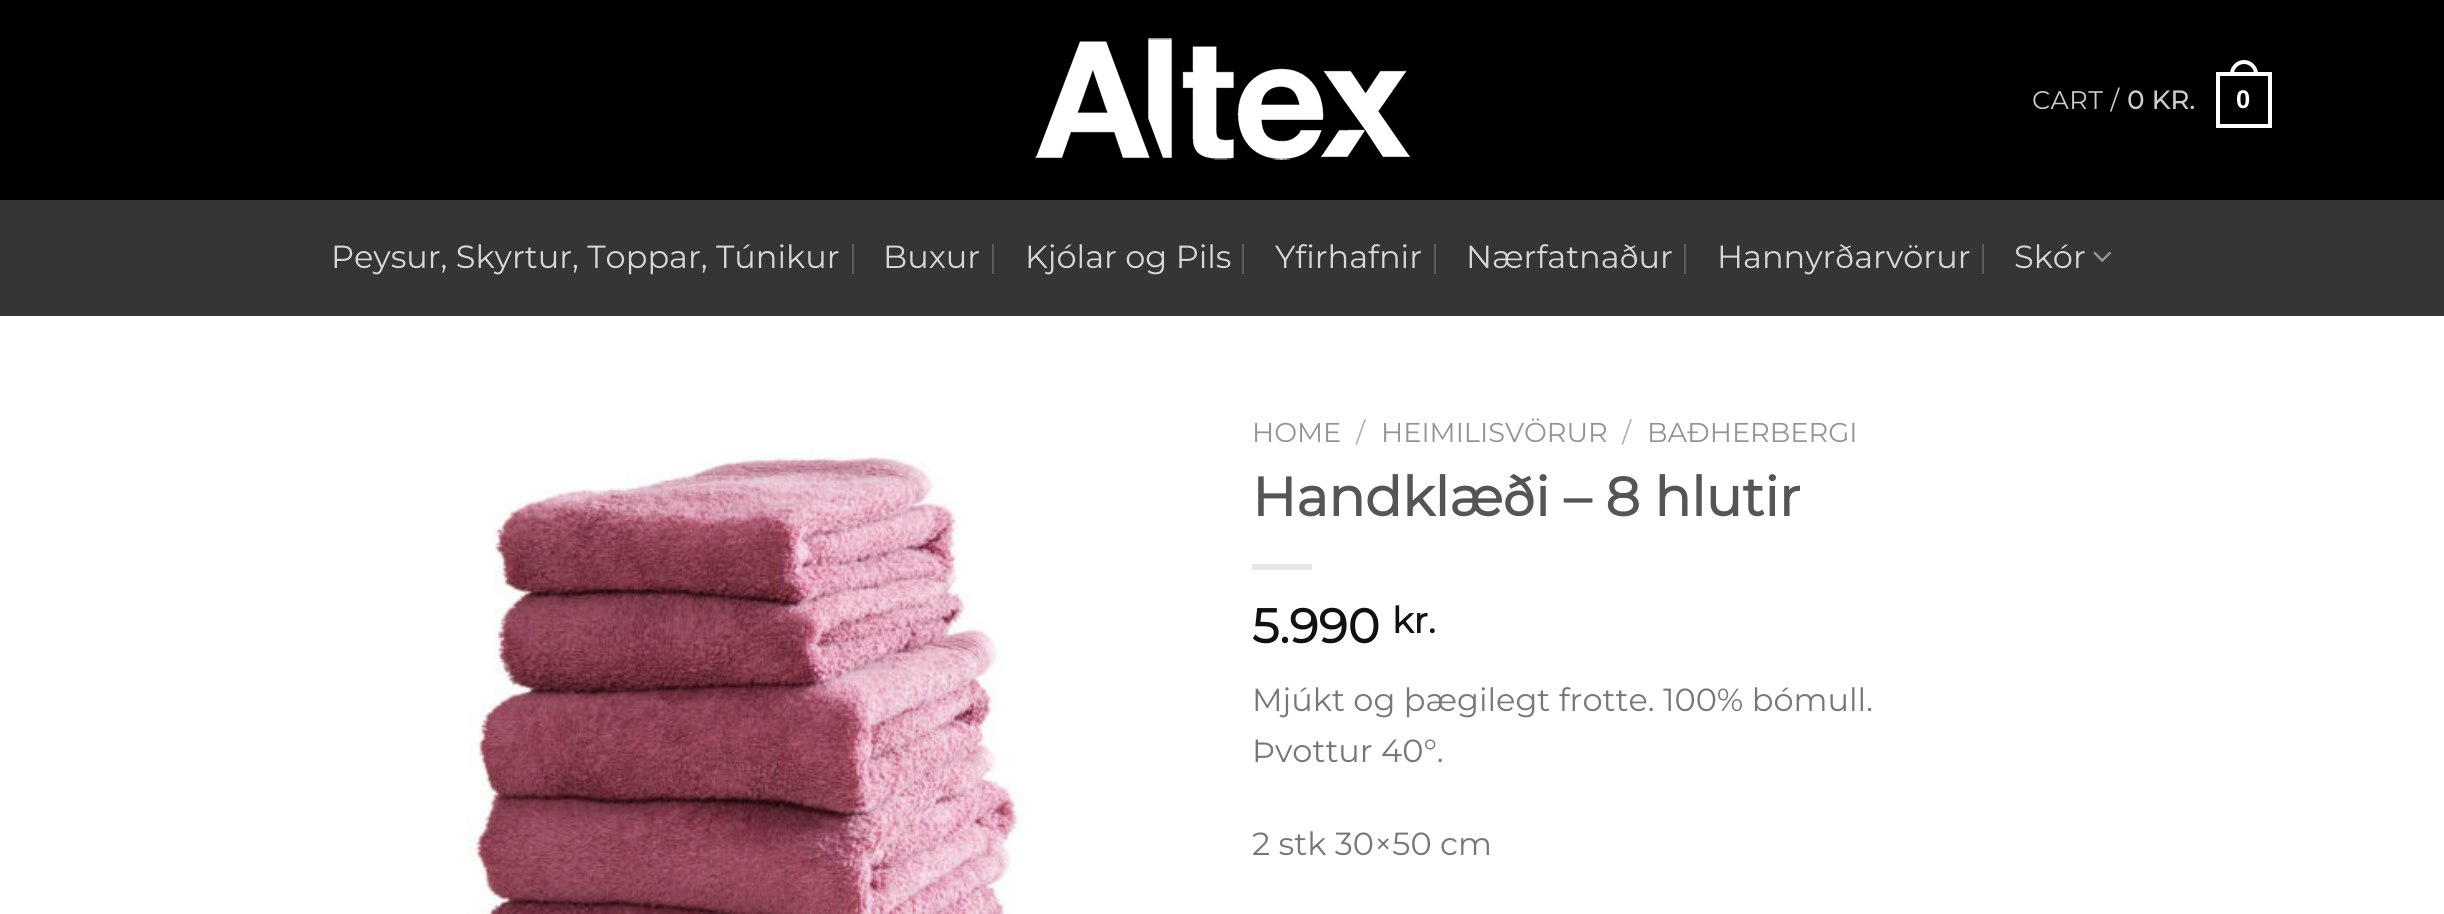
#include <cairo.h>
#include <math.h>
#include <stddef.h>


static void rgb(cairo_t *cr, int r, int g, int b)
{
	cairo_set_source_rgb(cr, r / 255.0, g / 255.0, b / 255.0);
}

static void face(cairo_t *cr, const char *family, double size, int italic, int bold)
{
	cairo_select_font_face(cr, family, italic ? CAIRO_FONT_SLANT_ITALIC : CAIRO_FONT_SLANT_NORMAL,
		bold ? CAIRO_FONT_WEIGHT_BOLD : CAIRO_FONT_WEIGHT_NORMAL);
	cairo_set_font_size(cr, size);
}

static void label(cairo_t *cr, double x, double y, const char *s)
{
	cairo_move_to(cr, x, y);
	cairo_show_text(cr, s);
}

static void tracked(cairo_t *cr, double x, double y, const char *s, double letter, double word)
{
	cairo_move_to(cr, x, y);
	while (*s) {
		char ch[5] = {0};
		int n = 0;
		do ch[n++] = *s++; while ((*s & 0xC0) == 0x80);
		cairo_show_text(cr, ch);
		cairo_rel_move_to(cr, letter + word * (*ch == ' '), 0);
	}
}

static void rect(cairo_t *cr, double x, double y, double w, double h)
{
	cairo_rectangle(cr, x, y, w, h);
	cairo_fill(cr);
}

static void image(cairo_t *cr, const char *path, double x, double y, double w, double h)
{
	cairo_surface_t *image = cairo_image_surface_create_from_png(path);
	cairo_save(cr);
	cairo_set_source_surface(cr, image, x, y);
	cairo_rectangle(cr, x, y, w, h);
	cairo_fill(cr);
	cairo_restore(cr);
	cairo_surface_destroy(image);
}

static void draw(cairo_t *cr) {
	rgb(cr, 255, 255, 255);
	cairo_paint(cr);
	rgb(cr, 0, 0, 0);
	rect(cr, 0, 0, 2444, 200);
	image(cr, "image0.png", 1035, 38, 375, 122);
	face(cr, "Montserrat Thin", 25.5, 0, 0);
	rgb(cr, 204, 204, 204);
	tracked(cr, 2032, 109, "CART /", 0.5, 0);
	face(cr, "Montserrat", 25.5, 0, 1);
	tracked(cr, 2127, 109, "0 KR.", 0.5, 0);
	cairo_rectangle(cr, 2218, 74, 52, 52);
	rgb(cr, 255, 255, 255);
	cairo_set_line_width(cr, 4);
	cairo_stroke(cr);
	cairo_set_fill_rule(cr, CAIRO_FILL_RULE_EVEN_ODD);
	cairo_new_path(cr);
	cairo_move_to(cr, 2244, 60);
	cairo_curve_to(cr, 2251.5, 60, 2258, 66.5, 2258, 74);
	cairo_line_to(cr, 2258, 76);
	cairo_line_to(cr, 2230, 76);
	cairo_line_to(cr, 2230, 74);
	cairo_curve_to(cr, 2230, 66.5, 2236.5, 60, 2244, 60);
	cairo_close_path(cr);
	cairo_move_to(cr, 2244, 64);
	cairo_curve_to(cr, 2249.5, 64, 2254, 68.5, 2254, 74);
	cairo_line_to(cr, 2254, 76);
	cairo_line_to(cr, 2234, 76);
	cairo_line_to(cr, 2234, 74);
	cairo_curve_to(cr, 2234, 68.5, 2238.5, 64, 2244, 64);
	cairo_close_path(cr);
	cairo_fill(cr);
	face(cr, "Liberation Sans", 25.5, 0, 1);
	tracked(cr, 2236, 108, "0", 0.5, 0);
	rgb(cr, 53, 53, 53);
	rect(cr, 0, 200, 2444, 116);
	face(cr, "Montserrat Thin", 32, 0, 0);
	rgb(cr, 215, 215, 215);
	label(cr, 331, 268, "Peysur, Skyrtur, Toppar, Túnikur");
	rgb(cr, 93, 93, 93);
	rect(cr, 852, 244, 2, 30);
	rgb(cr, 215, 215, 215);
	label(cr, 883, 268, "Buxur");
	rgb(cr, 93, 93, 93);
	rect(cr, 992, 244, 2, 30);
	rgb(cr, 215, 215, 215);
	label(cr, 1025, 268, "Kjólar og Pils");
	rgb(cr, 93, 93, 93);
	rect(cr, 1242, 244, 2, 30);
	rgb(cr, 215, 215, 215);
	label(cr, 1275, 268, "Yfirhafnir");
	rgb(cr, 93, 93, 93);
	rect(cr, 1434, 244, 2, 30);
	rgb(cr, 215, 215, 215);
	label(cr, 1466, 268, "Nærfatnaður");
	rgb(cr, 93, 93, 93);
	rect(cr, 1684, 244, 2, 30);
	rgb(cr, 215, 215, 215);
	label(cr, 1717, 268, "Hannyrðarvörur");
	rgb(cr, 93, 93, 93);
	rect(cr, 1982, 244, 2, 30);
	rgb(cr, 215, 215, 215);
	label(cr, 2014, 268, "Skór");
	image(cr, "image1.png", 2093, 251, 19, 11);
	image(cr, "image2.png", 467, 449, 556, 465);
	face(cr, "Montserrat Thin", 27.25, 0, 0);
	rgb(cr, 148, 148, 148);
	label(cr, 1252, 442, "HOME");
	rgb(cr, 178, 178, 178);
	label(cr, 1356, 442, "/");
	rgb(cr, 148, 148, 148);
	label(cr, 1381, 442, "HEIMILISVÖRUR");
	rgb(cr, 178, 178, 178);
	label(cr, 1622, 442, "/");
	rgb(cr, 148, 148, 148);
	label(cr, 1647, 442, "BAÐHERBERGI");
	face(cr, "Montserrat", 54.4, 0, 1);
	rgb(cr, 85, 85, 85);
	label(cr, 1252, 516, "Handklæði – 8 hlutir");
	rgb(cr, 230, 230, 230);
	rect(cr, 1252, 564, 60, 6);
	face(cr, "Montserrat", 48, 0, 1);
	rgb(cr, 17, 17, 17);
	label(cr, 1252, 643, "5.990");
	face(cr, "Montserrat", 36, 0, 1);
	label(cr, 1392, 633, "kr.");
	face(cr, "Montserrat Thin", 32, 0, 0);
	rgb(cr, 119, 119, 119);
	label(cr, 1252, 711, "Mjúkt og þægilegt frotte. 100% bómull.");
	label(cr, 1252, 762, "Þvottur 40°.");
	label(cr, 1252, 855, "2 stk 30×50 cm");
}

int main(void) {
	cairo_surface_t *surface = cairo_image_surface_create(CAIRO_FORMAT_RGB24, 2444, 914);
	cairo_t *cr = cairo_create(surface);
	cairo_font_options_t *options = cairo_font_options_create();
	cairo_font_options_set_hint_metrics(options, CAIRO_HINT_METRICS_OFF);
	cairo_font_options_set_hint_style(options, CAIRO_HINT_STYLE_NONE);
	cairo_set_font_options(cr, options);
	cairo_set_miter_limit(cr, 4);
	draw(cr);
	cairo_surface_write_to_png(surface, "render.png");
	cairo_font_options_destroy(options);
	cairo_destroy(cr);
	cairo_surface_destroy(surface);
	return 0;
}
